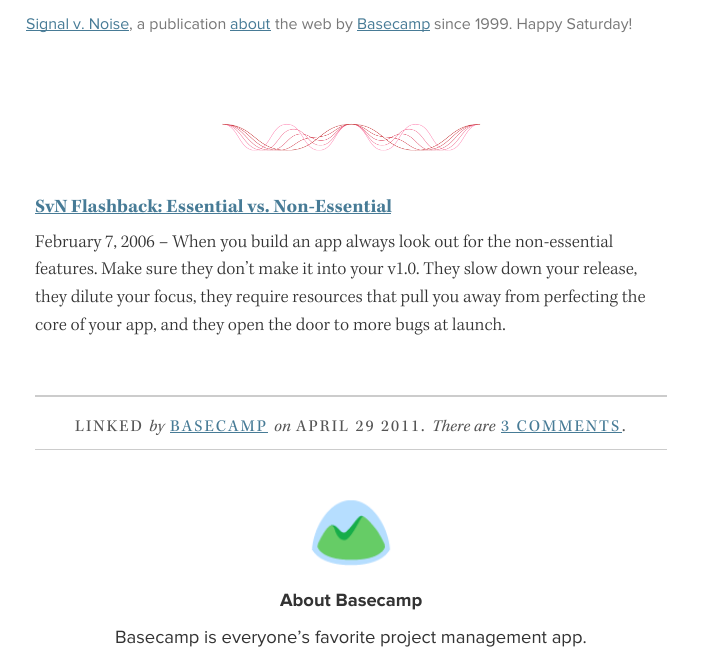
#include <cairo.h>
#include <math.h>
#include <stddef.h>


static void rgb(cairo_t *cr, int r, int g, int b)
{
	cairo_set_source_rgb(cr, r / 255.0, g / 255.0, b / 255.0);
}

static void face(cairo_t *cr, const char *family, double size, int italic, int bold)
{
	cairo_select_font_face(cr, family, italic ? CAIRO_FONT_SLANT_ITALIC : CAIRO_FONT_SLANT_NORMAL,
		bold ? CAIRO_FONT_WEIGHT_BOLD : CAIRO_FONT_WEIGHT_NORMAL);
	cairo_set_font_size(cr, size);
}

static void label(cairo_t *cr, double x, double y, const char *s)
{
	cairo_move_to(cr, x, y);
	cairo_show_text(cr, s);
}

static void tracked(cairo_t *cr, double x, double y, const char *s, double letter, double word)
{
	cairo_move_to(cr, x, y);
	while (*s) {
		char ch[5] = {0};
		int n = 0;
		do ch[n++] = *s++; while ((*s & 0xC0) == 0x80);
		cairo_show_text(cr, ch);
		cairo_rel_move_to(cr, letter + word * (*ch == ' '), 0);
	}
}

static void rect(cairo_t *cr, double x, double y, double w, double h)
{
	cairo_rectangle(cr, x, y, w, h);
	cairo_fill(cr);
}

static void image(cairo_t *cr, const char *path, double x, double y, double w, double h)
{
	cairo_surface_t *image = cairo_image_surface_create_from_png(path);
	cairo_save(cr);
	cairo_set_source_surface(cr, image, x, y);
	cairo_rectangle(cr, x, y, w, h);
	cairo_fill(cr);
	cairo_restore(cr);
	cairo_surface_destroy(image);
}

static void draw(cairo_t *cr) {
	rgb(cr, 255, 255, 255);
	cairo_paint(cr);
	rgb(cr, 71, 123, 150);
	rect(cr, 26, 30, 103, 1);
	face(cr, "Proxima Nova", 16, 0, 0);
	label(cr, 26, 29, "Signal v. Noise");
	rgb(cr, 119, 119, 119);
	label(cr, 129, 29, ", a publication");
	rgb(cr, 71, 123, 150);
	label(cr, 230, 29, "about");
	rect(cr, 230, 30, 41, 1);
	rgb(cr, 119, 119, 119);
	label(cr, 275, 29, "the web by");
	rgb(cr, 71, 123, 150);
	rect(cr, 357, 30, 73, 1);
	label(cr, 357, 29, "Basecamp");
	rgb(cr, 119, 119, 119);
	label(cr, 434, 29, "since 1999. Happy Saturday!");
	image(cr, "image0.png", 222, 123, 259, 28);
	face(cr, "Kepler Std", 19.25, 0, 1);
	rgb(cr, 71, 123, 150);
	label(cr, 35, 212, "SvN Flashback: Essential vs. Non-Essential");
	rect(cr, 35, 213, 356, 1);
	face(cr, "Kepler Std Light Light", 18.4, 0, 0);
	rgb(cr, 51, 51, 51);
	label(cr, 35, 247, "February 7, 2006 – When you build an app always look out for the non-essential");
	label(cr, 35, 274, "features. Make sure they don’t make it into your v1.0. They slow down your release,");
	label(cr, 35, 302, "they dilute your focus, they require resources that pull you away from perfecting the");
	label(cr, 35, 330, "core of your app, and they open the door to more bugs at launch.");
	rgb(cr, 204, 204, 204);
	rect(cr, 35, 395, 632, 2);
	rect(cr, 35, 449, 632, 1);
	face(cr, "Kepler Std", 16.75, 0, 0);
	rgb(cr, 85, 85, 85);
	tracked(cr, 75, 431, "LINKED", 2, 0);
	face(cr, "Kepler Std", 16.75, 1, 0);
	label(cr, 149, 431, "by");
	face(cr, "Kepler Std", 16.75, 0, 0);
	rgb(cr, 71, 123, 150);
	tracked(cr, 170, 431, "BASECAMP", 2, 0);
	rect(cr, 170, 432, 98, 1);
	face(cr, "Kepler Std", 16.75, 1, 0);
	rgb(cr, 85, 85, 85);
	label(cr, 274, 431, "on");
	face(cr, "Kepler Std", 16.75, 0, 0);
	tracked(cr, 296, 431, "APRIL 29 2011.", 2, 0);
	face(cr, "Kepler Std", 16.75, 1, 0);
	label(cr, 432, 431, "There are");
	face(cr, "Kepler Std", 16.75, 0, 0);
	rgb(cr, 71, 123, 150);
	tracked(cr, 501, 431, "3 COMMENTS", 2, 0);
	rect(cr, 501, 432, 121, 1);
	rgb(cr, 85, 85, 85);
	tracked(cr, 622, 431, ".", 2, 0);
	image(cr, "image1.png", 311, 500, 80, 66);
	face(cr, "Proxima Nova", 18.4, 0, 1);
	rgb(cr, 51, 51, 51);
	label(cr, 280, 606, "About Basecamp");
	face(cr, "Proxima Nova", 18.4, 0, 0);
	label(cr, 115, 643, "Basecamp is everyone’s favorite project management app.");
}

int main(void) {
	cairo_surface_t *surface = cairo_image_surface_create(CAIRO_FORMAT_RGB24, 702, 660);
	cairo_t *cr = cairo_create(surface);
	cairo_font_options_t *options = cairo_font_options_create();
	cairo_font_options_set_hint_metrics(options, CAIRO_HINT_METRICS_OFF);
	cairo_font_options_set_hint_style(options, CAIRO_HINT_STYLE_NONE);
	cairo_set_font_options(cr, options);
	cairo_set_miter_limit(cr, 4);
	draw(cr);
	cairo_surface_write_to_png(surface, "render.png");
	cairo_font_options_destroy(options);
	cairo_destroy(cr);
	cairo_surface_destroy(surface);
	return 0;
}
